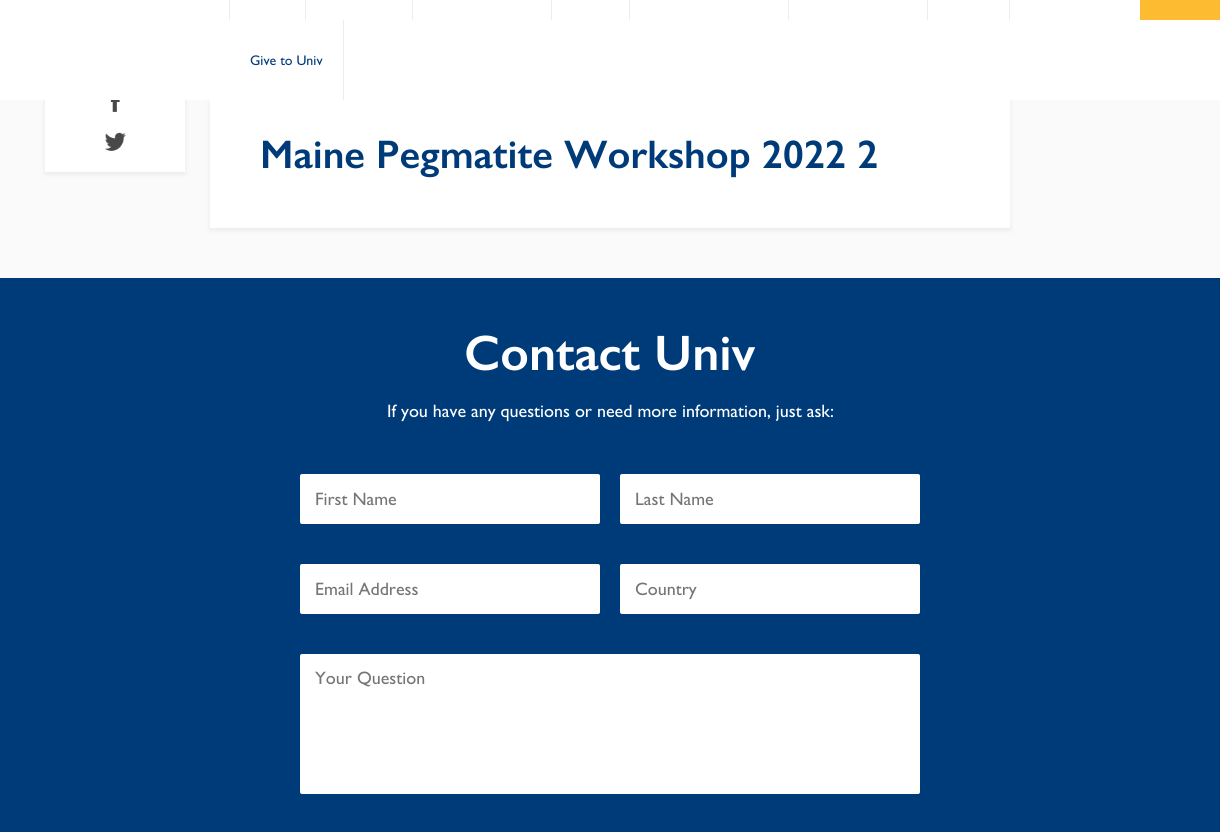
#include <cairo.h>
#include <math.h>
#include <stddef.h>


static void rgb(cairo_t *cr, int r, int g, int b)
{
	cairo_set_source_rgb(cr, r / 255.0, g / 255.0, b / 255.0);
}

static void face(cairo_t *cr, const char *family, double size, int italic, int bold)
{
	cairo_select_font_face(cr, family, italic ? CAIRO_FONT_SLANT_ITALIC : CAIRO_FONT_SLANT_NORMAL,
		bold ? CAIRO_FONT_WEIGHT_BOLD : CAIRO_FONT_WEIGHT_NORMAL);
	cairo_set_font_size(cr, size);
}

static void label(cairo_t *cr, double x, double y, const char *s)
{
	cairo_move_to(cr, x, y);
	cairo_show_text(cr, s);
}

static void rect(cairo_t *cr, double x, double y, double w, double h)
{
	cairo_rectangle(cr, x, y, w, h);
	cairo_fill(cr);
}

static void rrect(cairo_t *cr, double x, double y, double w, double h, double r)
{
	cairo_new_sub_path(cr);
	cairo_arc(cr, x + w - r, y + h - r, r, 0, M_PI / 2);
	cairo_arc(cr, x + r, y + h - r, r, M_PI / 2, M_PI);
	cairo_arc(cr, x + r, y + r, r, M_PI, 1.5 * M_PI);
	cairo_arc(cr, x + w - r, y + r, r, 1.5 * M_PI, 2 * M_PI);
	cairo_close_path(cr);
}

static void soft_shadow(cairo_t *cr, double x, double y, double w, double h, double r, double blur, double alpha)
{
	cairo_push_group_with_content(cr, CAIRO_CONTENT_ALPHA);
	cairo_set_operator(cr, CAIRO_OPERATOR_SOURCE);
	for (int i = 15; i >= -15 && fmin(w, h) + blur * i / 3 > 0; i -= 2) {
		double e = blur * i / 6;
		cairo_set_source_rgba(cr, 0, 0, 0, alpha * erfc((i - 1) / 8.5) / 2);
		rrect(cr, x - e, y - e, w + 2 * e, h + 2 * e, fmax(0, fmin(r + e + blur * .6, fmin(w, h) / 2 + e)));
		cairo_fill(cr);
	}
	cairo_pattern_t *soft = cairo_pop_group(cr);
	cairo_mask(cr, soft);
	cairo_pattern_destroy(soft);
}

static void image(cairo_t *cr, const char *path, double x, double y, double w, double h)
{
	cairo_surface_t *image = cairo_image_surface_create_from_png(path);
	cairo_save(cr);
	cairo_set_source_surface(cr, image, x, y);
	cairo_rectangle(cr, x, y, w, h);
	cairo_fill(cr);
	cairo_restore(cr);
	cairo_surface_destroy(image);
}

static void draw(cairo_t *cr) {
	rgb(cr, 250, 250, 250);
	cairo_paint(cr);
	rgb(cr, 0, 0, 0);
	soft_shadow(cr, 45, 22, 140, 152, 0, 3, 0.07);
	soft_shadow(cr, 210, 102, 800, 128, 0, 3, 0.07);
	rgb(cr, 255, 255, 255);
	rect(cr, 0, 0, 1220, 100);
	rgb(cr, 237, 237, 237);
	rect(cr, 229, 0, 1, 20);
	rgb(cr, 252, 187, 48);
	rect(cr, 1140, 0, 80, 20);
	rgb(cr, 237, 237, 237);
	rect(cr, 305, 0, 1, 20);
	rect(cr, 412, 0, 1, 20);
	rect(cr, 551, 0, 1, 20);
	rect(cr, 629, 0, 1, 20);
	rect(cr, 788, 0, 1, 20);
	rect(cr, 927, 0, 1, 20);
	rect(cr, 1009, 0, 1, 20);
	rect(cr, 343, 20, 1, 80);
	face(cr, "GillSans", 14, 0, 0);
	rgb(cr, 0, 59, 121);
	label(cr, 250, 65, "Give to Univ");
	rgb(cr, 255, 255, 255);
	rect(cr, 45, 100, 140, 72);
	image(cr, "image0.png", 110, 100, 10, 12);
	image(cr, "image1.png", 105, 132, 21, 19);
	rect(cr, 210, 100, 800, 128);
	face(cr, "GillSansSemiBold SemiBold", 40, 0, 0);
	rgb(cr, 0, 59, 121);
	label(cr, 260, 168, "Maine Pegmatite Workshop 2022 2");
	rect(cr, 0, 278, 1220, 554);
	face(cr, "GillSansSemiBold SemiBold", 50, 0, 0);
	rgb(cr, 255, 255, 255);
	label(cr, 464, 370, "Contact Univ");
	face(cr, "GillSans", 18, 0, 0);
	label(cr, 387, 417, "If you have any questions or need more information, just ask:");
	rrect(cr, 300, 474, 300, 50, 2);
	cairo_fill(cr);
	rgb(cr, 117, 117, 117);
	label(cr, 315, 505, "First Name");
	rgb(cr, 255, 255, 255);
	rrect(cr, 620, 474, 300, 50, 2);
	cairo_fill(cr);
	rgb(cr, 117, 117, 117);
	label(cr, 635, 505, "Last Name");
	rgb(cr, 255, 255, 255);
	rrect(cr, 300, 564, 300, 50, 2);
	cairo_fill(cr);
	rgb(cr, 117, 117, 117);
	label(cr, 315, 595, "Email Address");
	rgb(cr, 255, 255, 255);
	rrect(cr, 620, 564, 300, 50, 2);
	cairo_fill(cr);
	rgb(cr, 117, 117, 117);
	label(cr, 635, 595, "Country");
	rgb(cr, 255, 255, 255);
	rrect(cr, 300, 654, 620, 140, 2);
	cairo_fill(cr);
	rgb(cr, 117, 117, 117);
	label(cr, 315, 684, "Your Question");
}

int main(void) {
	cairo_surface_t *surface = cairo_image_surface_create(CAIRO_FORMAT_RGB24, 1220, 832);
	cairo_t *cr = cairo_create(surface);
	cairo_font_options_t *options = cairo_font_options_create();
	cairo_font_options_set_hint_metrics(options, CAIRO_HINT_METRICS_OFF);
	cairo_font_options_set_hint_style(options, CAIRO_HINT_STYLE_NONE);
	cairo_set_font_options(cr, options);
	cairo_set_miter_limit(cr, 4);
	draw(cr);
	cairo_surface_write_to_png(surface, "render.png");
	cairo_font_options_destroy(options);
	cairo_destroy(cr);
	cairo_surface_destroy(surface);
	return 0;
}
